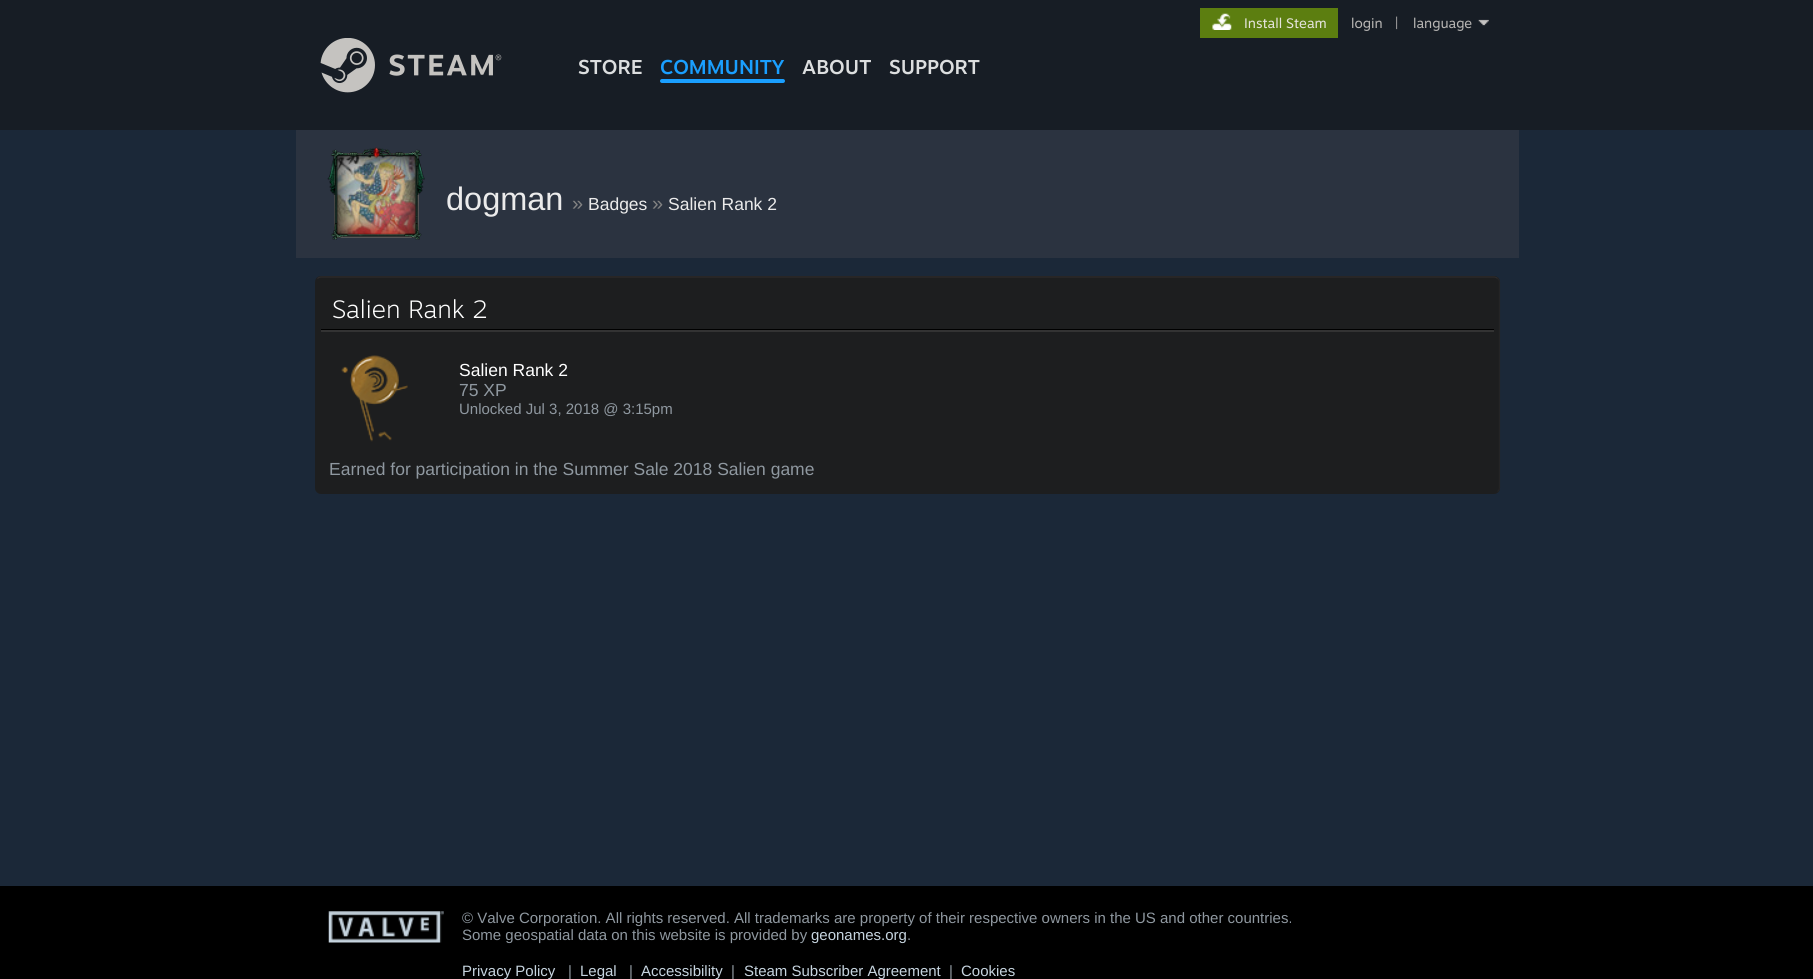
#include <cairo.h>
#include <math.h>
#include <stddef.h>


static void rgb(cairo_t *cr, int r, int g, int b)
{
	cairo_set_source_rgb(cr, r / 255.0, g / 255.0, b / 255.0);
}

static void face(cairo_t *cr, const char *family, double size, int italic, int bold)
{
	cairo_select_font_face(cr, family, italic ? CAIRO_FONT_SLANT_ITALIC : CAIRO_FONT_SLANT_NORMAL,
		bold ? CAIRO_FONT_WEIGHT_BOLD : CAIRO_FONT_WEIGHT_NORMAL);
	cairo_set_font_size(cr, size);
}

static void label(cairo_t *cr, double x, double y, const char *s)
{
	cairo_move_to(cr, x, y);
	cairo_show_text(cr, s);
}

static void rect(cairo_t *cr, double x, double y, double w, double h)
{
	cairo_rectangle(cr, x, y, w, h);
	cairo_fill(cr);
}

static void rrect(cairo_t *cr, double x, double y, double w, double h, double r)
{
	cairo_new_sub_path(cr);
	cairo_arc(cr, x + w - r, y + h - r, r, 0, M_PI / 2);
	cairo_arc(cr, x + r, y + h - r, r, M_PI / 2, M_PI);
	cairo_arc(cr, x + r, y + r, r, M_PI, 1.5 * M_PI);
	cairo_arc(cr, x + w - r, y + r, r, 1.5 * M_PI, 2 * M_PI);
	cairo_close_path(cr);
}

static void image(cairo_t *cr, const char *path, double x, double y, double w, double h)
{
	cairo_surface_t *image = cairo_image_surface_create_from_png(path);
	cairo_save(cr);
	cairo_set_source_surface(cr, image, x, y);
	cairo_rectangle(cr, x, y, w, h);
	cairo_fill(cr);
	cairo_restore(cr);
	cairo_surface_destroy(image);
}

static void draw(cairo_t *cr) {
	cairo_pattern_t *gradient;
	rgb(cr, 27, 40, 56);
	cairo_paint(cr);
	rgb(cr, 23, 29, 37);
	rect(cr, 0, 0, 1813, 130);
	rgb(cr, 92, 126, 16);
	rect(cr, 1200, 8, 138, 30);
	image(cr, "image0.png", 1212, 13, 20, 17);
	face(cr, "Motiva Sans", 13.75, 0, 0);
	rgb(cr, 229, 228, 220);
	label(cr, 1244, 28, "Install Steam");
	rgb(cr, 184, 182, 180);
	label(cr, 1351, 28, "login");
	label(cr, 1395, 28, "|");
	label(cr, 1413, 28, "language");
	image(cr, "image1.png", 1478, 19, 11, 7);
	image(cr, "image2.png", 320, 38, 182, 55);
	face(cr, "Motiva Sans Medium", 20, 0, 0);
	rgb(cr, 220, 222, 223);
	label(cr, 578, 74, "STORE");
	rgb(cr, 26, 159, 255);
	label(cr, 660, 74, "COMMUNITY");
	rrect(cr, 660, 79, 125, 4, 2);
	cairo_fill(cr);
	rgb(cr, 220, 222, 223);
	label(cr, 802, 74, "ABOUT");
	label(cr, 889, 74, "SUPPORT");
	rgb(cr, 43, 51, 64);
	rect(cr, 296, 130, 1223, 128);
	gradient = cairo_pattern_create_linear(376, 153, 376, 238);
	cairo_pattern_add_color_stop_rgba(gradient, 0.05, 0.416, 0.416, 0.416, 1);
	cairo_pattern_add_color_stop_rgba(gradient, 0.95, 0.333, 0.333, 0.333, 1);
	cairo_set_source(cr, gradient);
	cairo_pattern_destroy(gradient);
	rect(cr, 334, 153, 85, 85);
	gradient = cairo_pattern_create_linear(376, 154, 376, 236);
	cairo_pattern_add_color_stop_rgba(gradient, 0.05, 0.318, 0.318, 0.318, 1);
	cairo_pattern_add_color_stop_rgba(gradient, 0.95, 0.278, 0.278, 0.278, 1);
	cairo_set_source(cr, gradient);
	cairo_pattern_destroy(gradient);
	rect(cr, 335, 156, 83, 80);
	image(cr, "image4.png", 336, 155, 80, 80);
	image(cr, "image3.png", 327, 147, 98, 93);
	face(cr, "Liberation Sans", 32.5, 0, 0);
	rgb(cr, 235, 235, 235);
	label(cr, 446, 210, "dogman");
	face(cr, "Liberation Sans", 20, 0, 0);
	rgb(cr, 130, 130, 130);
	label(cr, 572, 210, "»");
	face(cr, "Liberation Sans", 17.5, 0, 0);
	rgb(cr, 235, 235, 235);
	label(cr, 588, 210, "Badges");
	face(cr, "Liberation Sans", 20, 0, 0);
	rgb(cr, 130, 130, 130);
	label(cr, 652, 210, "»");
	face(cr, "Liberation Sans", 17.5, 0, 0);
	rgb(cr, 235, 235, 235);
	label(cr, 668, 210, "Salien Rank 2");
	rgb(cr, 29, 30, 31);
	rrect(cr, 315, 276, 1185, 218, 6);
	cairo_fill(cr);
	cairo_new_path(cr);
	cairo_move_to(cr, 317.5, 278.5);
	cairo_curve_to(cr, 318.5, 277.5, 320, 277, 321, 277);
	cairo_line_to(cr, 1494, 277);
	cairo_curve_to(cr, 1495, 277, 1496.5, 277.5, 1497.5, 278.5);
	rgb(cr, 46, 44, 44);
	cairo_set_line_width(cr, 1.2);
	cairo_stroke(cr);
	cairo_new_path(cr);
	cairo_move_to(cr, 1497.5, 278.5);
	cairo_curve_to(cr, 1499, 279.5, 1499.5, 281, 1499.5, 282.5);
	cairo_line_to(cr, 1499.5, 487.5);
	cairo_curve_to(cr, 1499.5, 489, 1499, 490.5, 1497.5, 491.5);
	rgb(cr, 36, 36, 37);
	cairo_stroke(cr);
	face(cr, "Motiva Sans Thin", 25, 0, 0);
	rgb(cr, 255, 255, 255);
	label(cr, 332, 318, "Salien Rank 2");
	rgb(cr, 51, 51, 51);
	rect(cr, 321, 330, 1173, 2);
	rgb(cr, 0, 0, 0);
	rect(cr, 321, 329, 1173, 1);
	image(cr, "image5.png", 341, 355, 67, 87);
	face(cr, "Liberation Sans", 17.5, 0, 0);
	rgb(cr, 255, 255, 255);
	label(cr, 459, 376, "Salien Rank 2");
	rgb(cr, 143, 152, 160);
	label(cr, 459, 396, "75 XP");
	face(cr, "Liberation Sans", 15, 0, 0);
	label(cr, 459, 414, "Unlocked Jul 3, 2018 @ 3:15pm");
	face(cr, "Liberation Sans", 17.5, 0, 0);
	label(cr, 329, 475, "Earned for participation in the Summer Sale 2018 Salien game");
	rgb(cr, 0, 0, 0);
	rect(cr, 0, 886, 1813, 93);
	image(cr, "image6.png", 328, 911, 116, 32);
	face(cr, "Liberation Sans", 15, 0, 0);
	rgb(cr, 143, 152, 160);
	label(cr, 462, 923, "© Valve Corporation. All rights reserved. All trademarks are property of their respective owners in the US and other countries.");
	label(cr, 462, 940, "Some geospatial data on this website is provided by");
	rgb(cr, 198, 212, 223);
	label(cr, 811, 940, "geonames.org");
	rgb(cr, 143, 152, 160);
	label(cr, 907, 940, ".");
	rgb(cr, 198, 212, 223);
	label(cr, 462, 976, "Privacy Policy");
	rgb(cr, 143, 152, 160);
	label(cr, 568, 976, "|");
	rgb(cr, 198, 212, 223);
	label(cr, 580, 976, "Legal");
	rgb(cr, 143, 152, 160);
	label(cr, 629, 976, "|");
	rgb(cr, 198, 212, 223);
	label(cr, 641, 976, "Accessibility");
	rgb(cr, 143, 152, 160);
	label(cr, 731, 976, "|");
	rgb(cr, 198, 212, 223);
	label(cr, 744, 976, "Steam Subscriber Agreement");
	rgb(cr, 143, 152, 160);
	label(cr, 949, 976, "|");
	rgb(cr, 198, 212, 223);
	label(cr, 961, 976, "Cookies");
}

int main(void) {
	cairo_surface_t *surface = cairo_image_surface_create(CAIRO_FORMAT_RGB24, 1813, 979);
	cairo_t *cr = cairo_create(surface);
	cairo_font_options_t *options = cairo_font_options_create();
	cairo_font_options_set_hint_metrics(options, CAIRO_HINT_METRICS_OFF);
	cairo_font_options_set_hint_style(options, CAIRO_HINT_STYLE_NONE);
	cairo_set_font_options(cr, options);
	cairo_set_miter_limit(cr, 4);
	draw(cr);
	cairo_surface_write_to_png(surface, "render.png");
	cairo_font_options_destroy(options);
	cairo_destroy(cr);
	cairo_surface_destroy(surface);
	return 0;
}
